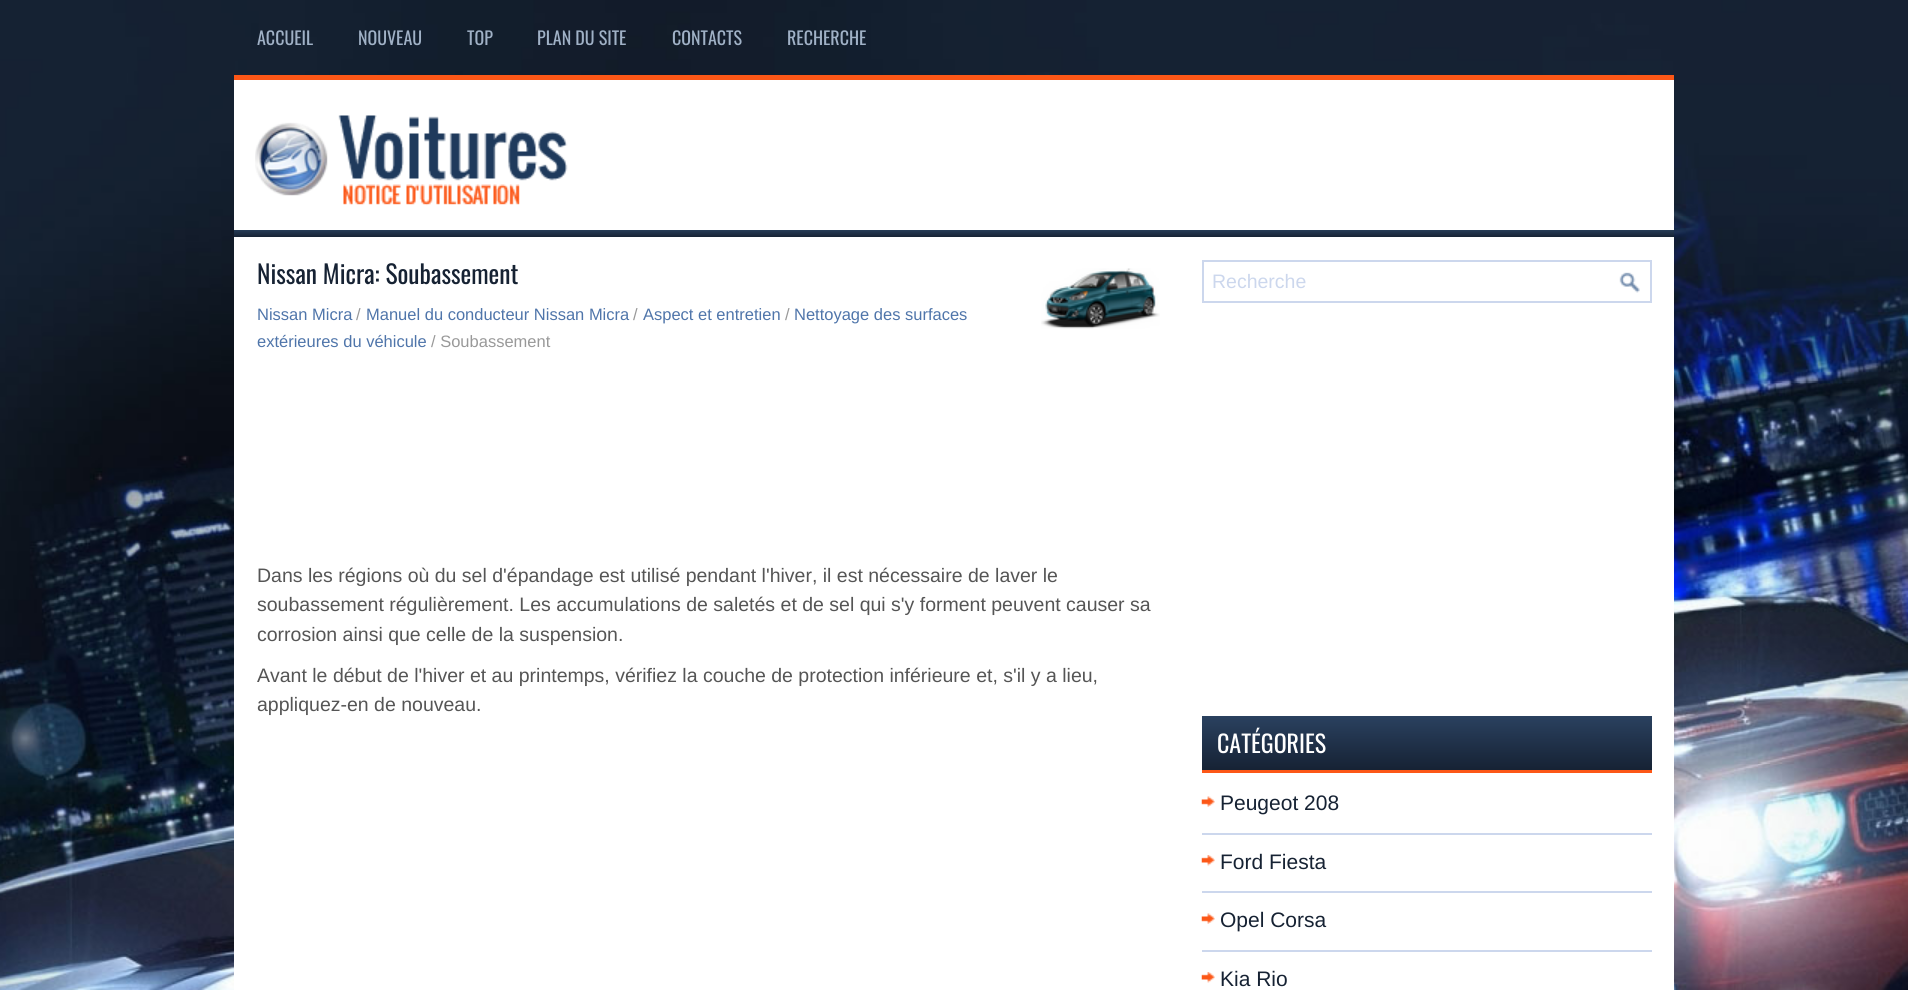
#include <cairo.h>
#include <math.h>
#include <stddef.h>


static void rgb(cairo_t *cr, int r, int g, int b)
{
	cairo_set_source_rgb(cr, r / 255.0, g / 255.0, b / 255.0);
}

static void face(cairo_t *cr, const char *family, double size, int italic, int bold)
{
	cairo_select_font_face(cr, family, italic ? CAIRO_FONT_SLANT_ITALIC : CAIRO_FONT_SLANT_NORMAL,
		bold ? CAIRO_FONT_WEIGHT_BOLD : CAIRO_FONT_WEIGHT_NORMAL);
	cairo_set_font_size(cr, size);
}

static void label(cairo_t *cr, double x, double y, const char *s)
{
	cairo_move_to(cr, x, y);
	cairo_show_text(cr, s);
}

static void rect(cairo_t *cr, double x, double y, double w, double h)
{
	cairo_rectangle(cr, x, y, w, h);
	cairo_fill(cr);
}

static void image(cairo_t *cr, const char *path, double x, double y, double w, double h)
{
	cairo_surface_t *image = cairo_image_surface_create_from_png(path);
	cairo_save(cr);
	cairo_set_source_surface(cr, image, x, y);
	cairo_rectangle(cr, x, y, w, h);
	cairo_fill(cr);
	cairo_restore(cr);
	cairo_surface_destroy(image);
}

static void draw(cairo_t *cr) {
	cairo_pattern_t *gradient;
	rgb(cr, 255, 255, 255);
	cairo_paint(cr);
	image(cr, "image0.png", 0, 0, 1908, 990);
	face(cr, "Oswald", 18, 0, 0);
	rgb(cr, 160, 177, 198);
	label(cr, 257, 45, "ACCUEIL");
	label(cr, 358, 45, "NOUVEAU");
	label(cr, 467, 45, "TOP");
	label(cr, 537, 45, "PLAN DU SITE");
	label(cr, 672, 45, "CONTACTS");
	label(cr, 787, 45, "RECHERCHE");
	rgb(cr, 255, 255, 255);
	rect(cr, 234, 80, 1440, 150);
	rgb(cr, 252, 87, 23);
	rect(cr, 234, 75, 1440, 5);
	image(cr, "image1.png", 255, 115, 313, 91);
	gradient = cairo_pattern_create_linear(954, 229, 954, 237);
	cairo_pattern_add_color_stop_rgba(gradient, 0, 0.161, 0.251, 0.365, 1);
	cairo_pattern_add_color_stop_rgba(gradient, 1, 0.09, 0.137, 0.204, 1);
	cairo_set_source(cr, gradient);
	cairo_pattern_destroy(gradient);
	rect(cr, 234, 230, 1440, 7);
	rgb(cr, 255, 255, 255);
	rect(cr, 234, 237, 1440, 753);
	face(cr, "Oswald", 25.5, 0, 0);
	rgb(cr, 22, 34, 51);
	label(cr, 257, 284, "Nissan Micra: Soubassement");
	image(cr, "image2.png", 1041, 268, 119, 61);
	face(cr, "Liberation Sans", 16.5, 0, 0);
	rgb(cr, 79, 117, 170);
	label(cr, 257, 320, "Nissan Micra");
	rgb(cr, 153, 153, 153);
	label(cr, 356, 320, "/");
	rgb(cr, 79, 117, 170);
	label(cr, 366, 320, "Manuel du conducteur Nissan Micra");
	rgb(cr, 153, 153, 153);
	label(cr, 633, 320, "/");
	rgb(cr, 79, 117, 170);
	label(cr, 643, 320, "Aspect et entretien");
	rgb(cr, 153, 153, 153);
	label(cr, 785, 320, "/");
	rgb(cr, 79, 117, 170);
	label(cr, 794, 320, "Nettoyage des surfaces");
	label(cr, 257, 347, "extérieures du véhicule");
	rgb(cr, 153, 153, 153);
	label(cr, 431, 347, "/ Soubassement");
	face(cr, "Liberation Sans", 19.5, 0, 0);
	rgb(cr, 85, 85, 85);
	label(cr, 257, 582, "Dans les régions où du sel d'épandage est utilisé pendant l'hiver, il est nécessaire de laver le");
	label(cr, 257, 611, "soubassement régulièrement. Les accumulations de saletés et de sel qui s'y forment peuvent causer sa");
	label(cr, 257, 641, "corrosion ainsi que celle de la suspension.");
	label(cr, 257, 682, "Avant le début de l'hiver et au printemps, vérifiez la couche de protection inférieure et, s'il y a lieu,");
	label(cr, 257, 711, "appliquez-en de nouveau.");
	cairo_rectangle(cr, 1203, 261, 448, 41);
	rgb(cr, 204, 215, 237);
	cairo_stroke(cr);
	label(cr, 1212, 288, "Recherche");
	image(cr, "image3.png", 1619, 272, 21, 21);
	gradient = cairo_pattern_create_linear(1427, 716, 1427, 770);
	cairo_pattern_add_color_stop_rgba(gradient, 0, 0.165, 0.255, 0.373, 1);
	cairo_pattern_add_color_stop_rgba(gradient, 1, 0.086, 0.133, 0.204, 1);
	cairo_set_source(cr, gradient);
	cairo_pattern_destroy(gradient);
	rect(cr, 1202, 716, 450, 54);
	rgb(cr, 252, 87, 23);
	rect(cr, 1202, 770, 450, 3);
	face(cr, "Oswald", 24, 0, 0);
	rgb(cr, 255, 255, 255);
	label(cr, 1217, 753, "CATÉGORIES");
	image(cr, "image4.png", 1201, 796, 14, 11);
	rgb(cr, 204, 215, 237);
	rect(cr, 1202, 833, 450, 2);
	face(cr, "Liberation Sans", 21, 0, 0);
	rgb(cr, 22, 34, 51);
	label(cr, 1220, 810, "Peugeot 208");
	image(cr, "image5.png", 1201, 855, 14, 11);
	rgb(cr, 204, 215, 237);
	rect(cr, 1202, 891, 450, 2);
	rgb(cr, 22, 34, 51);
	label(cr, 1220, 869, "Ford Fiesta");
	image(cr, "image4.png", 1201, 913, 14, 11);
	rgb(cr, 204, 215, 237);
	rect(cr, 1202, 950, 450, 2);
	rgb(cr, 22, 34, 51);
	label(cr, 1220, 927, "Opel Corsa");
	image(cr, "image5.png", 1201, 972, 14, 11);
	label(cr, 1220, 986, "Kia Rio");
}

int main(void) {
	cairo_surface_t *surface = cairo_image_surface_create(CAIRO_FORMAT_RGB24, 1908, 990);
	cairo_t *cr = cairo_create(surface);
	cairo_font_options_t *options = cairo_font_options_create();
	cairo_font_options_set_hint_metrics(options, CAIRO_HINT_METRICS_OFF);
	cairo_font_options_set_hint_style(options, CAIRO_HINT_STYLE_NONE);
	cairo_set_font_options(cr, options);
	cairo_set_miter_limit(cr, 4);
	draw(cr);
	cairo_surface_write_to_png(surface, "render.png");
	cairo_font_options_destroy(options);
	cairo_destroy(cr);
	cairo_surface_destroy(surface);
	return 0;
}
